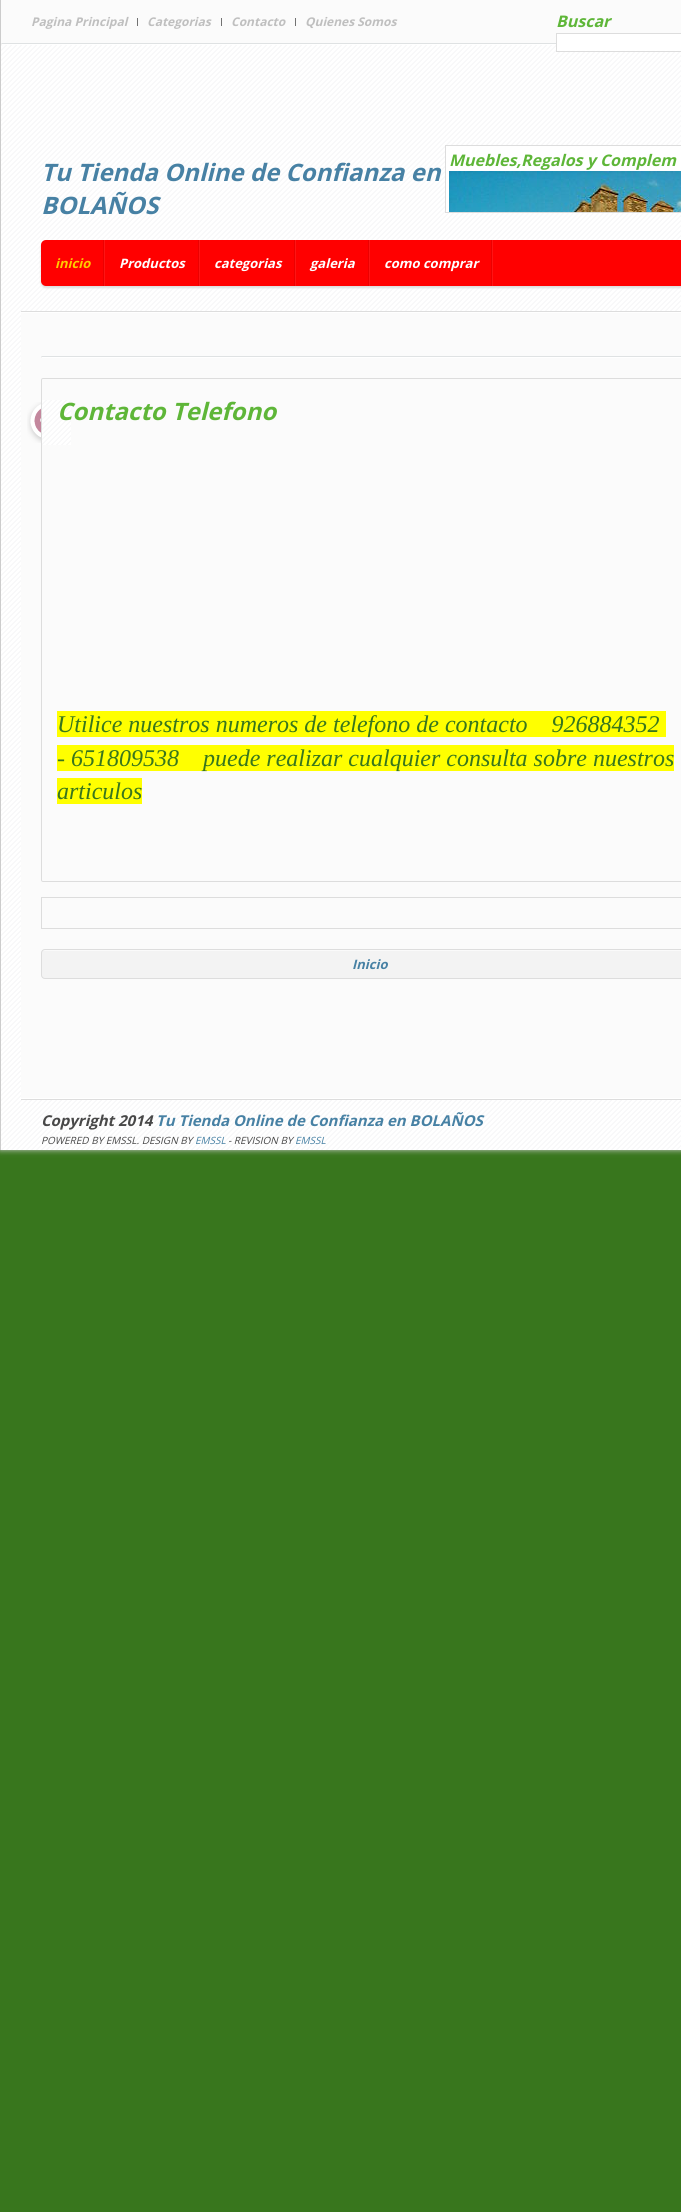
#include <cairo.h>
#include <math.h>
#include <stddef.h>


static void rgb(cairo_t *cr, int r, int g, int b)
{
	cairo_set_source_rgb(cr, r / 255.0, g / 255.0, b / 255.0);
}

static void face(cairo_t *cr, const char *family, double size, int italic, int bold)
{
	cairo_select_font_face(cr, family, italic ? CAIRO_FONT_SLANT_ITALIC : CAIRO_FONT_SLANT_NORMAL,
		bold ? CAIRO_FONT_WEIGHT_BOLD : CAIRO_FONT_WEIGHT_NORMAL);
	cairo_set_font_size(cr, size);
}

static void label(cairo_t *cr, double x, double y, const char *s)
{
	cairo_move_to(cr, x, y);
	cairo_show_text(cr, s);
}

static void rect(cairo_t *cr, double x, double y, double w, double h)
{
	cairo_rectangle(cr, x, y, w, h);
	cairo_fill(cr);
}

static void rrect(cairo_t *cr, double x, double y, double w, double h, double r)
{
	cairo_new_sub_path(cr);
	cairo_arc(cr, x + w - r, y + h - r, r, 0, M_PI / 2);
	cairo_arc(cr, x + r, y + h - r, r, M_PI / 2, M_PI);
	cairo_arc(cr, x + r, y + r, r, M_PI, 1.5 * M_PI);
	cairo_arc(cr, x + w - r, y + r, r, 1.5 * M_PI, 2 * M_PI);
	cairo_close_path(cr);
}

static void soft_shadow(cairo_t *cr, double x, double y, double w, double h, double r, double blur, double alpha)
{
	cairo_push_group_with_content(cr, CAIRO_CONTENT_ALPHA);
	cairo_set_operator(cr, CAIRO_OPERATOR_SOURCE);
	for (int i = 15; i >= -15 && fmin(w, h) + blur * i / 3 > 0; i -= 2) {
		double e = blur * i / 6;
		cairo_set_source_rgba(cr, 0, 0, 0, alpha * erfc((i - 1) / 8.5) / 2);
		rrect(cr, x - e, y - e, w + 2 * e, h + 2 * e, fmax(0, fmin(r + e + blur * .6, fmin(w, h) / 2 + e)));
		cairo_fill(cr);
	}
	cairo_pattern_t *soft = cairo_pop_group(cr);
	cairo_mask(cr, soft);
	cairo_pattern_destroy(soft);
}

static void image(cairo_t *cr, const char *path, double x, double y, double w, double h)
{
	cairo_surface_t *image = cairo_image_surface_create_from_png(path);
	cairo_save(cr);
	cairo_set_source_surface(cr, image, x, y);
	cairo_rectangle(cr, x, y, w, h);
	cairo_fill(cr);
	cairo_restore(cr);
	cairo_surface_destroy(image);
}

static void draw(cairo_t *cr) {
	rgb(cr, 56, 118, 29);
	cairo_paint(cr);
	rgb(cr, 204, 204, 204);
	soft_shadow(cr, 0, 0, 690, 1150, 0, 3, 1);
	image(cr, "image0.png", 1, 45, 680, 1105);
	rgb(cr, 204, 204, 204);
	rect(cr, 0, 0, 1, 1150);
	rgb(cr, 251, 251, 251);
	rect(cr, 1, 0, 680, 43);
	image(cr, "image1.png", 1, 43, 555, 2);
	face(cr, "Open Sans", 12, 1, 1);
	rgb(cr, 191, 191, 191);
	label(cr, 31, 26, "Pagina Principal");
	rgb(cr, 114, 114, 114);
	rect(cr, 137, 18, 1, 8);
	rgb(cr, 191, 191, 191);
	label(cr, 147, 26, "Categorias");
	rgb(cr, 114, 114, 114);
	rect(cr, 221, 18, 1, 8);
	rgb(cr, 191, 191, 191);
	label(cr, 231, 26, "Contacto");
	rgb(cr, 114, 114, 114);
	rect(cr, 295, 18, 1, 8);
	rgb(cr, 191, 191, 191);
	label(cr, 305, 26, "Quienes Somos");
	face(cr, "Open Sans", 16, 1, 1);
	rgb(cr, 94, 182, 56);
	label(cr, 556, 27, "Buscar");
	rgb(cr, 255, 255, 255);
	cairo_rectangle(cr, 556.5, 33.5, 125, 18);
	cairo_fill_preserve(cr);
	rgb(cr, 221, 221, 221);
	cairo_set_line_width(cr, 1);
	cairo_stroke(cr);
	rect(cr, 21, 311, 660, 1);
	face(cr, "Open Sans", 24, 1, 1);
	rgb(cr, 71, 129, 164);
	label(cr, 41, 181, "Tu Tienda Online de Confianza en");
	label(cr, 41, 214, "BOLAÑOS");
	rgb(cr, 255, 255, 255);
	cairo_rectangle(cr, 445.5, 145.5, 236, 67);
	cairo_fill_preserve(cr);
	rgb(cr, 221, 221, 221);
	cairo_stroke(cr);
	face(cr, "Open Sans", 16, 1, 1);
	rgb(cr, 94, 182, 56);
	label(cr, 449, 166, "Muebles,Regalos y Complem");
	image(cr, "image2.png", 449, 171, 232, 41);
	rgb(cr, 221, 221, 221);
	soft_shadow(cr, 41, 242, 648, 46, 5, 1, 1);
	rgb(cr, 255, 0, 0);
	rrect(cr, 41, 240, 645, 46, 5);
	cairo_fill(cr);
	image(cr, "image3.png", 103, 240, 2, 46);
	face(cr, "Open Sans", 13, 1, 1);
	rgb(cr, 255, 204, 0);
	label(cr, 55, 268, "inicio");
	image(cr, "image3.png", 198, 240, 2, 46);
	rgb(cr, 255, 255, 255);
	label(cr, 119, 268, "Productos");
	image(cr, "image3.png", 294, 240, 2, 46);
	label(cr, 214, 268, "categorias");
	image(cr, "image3.png", 368, 240, 2, 46);
	label(cr, 310, 268, "galeria");
	image(cr, "image3.png", 491, 240, 2, 46);
	label(cr, 384, 268, "como comprar");
	rgb(cr, 251, 251, 251);
	rect(cr, 21, 313, 660, 785);
	rgb(cr, 255, 255, 255);
	rect(cr, 21, 312, 660, 1);
	rect(cr, 21, 1098, 660, 1);
	image(cr, "image4.png", 41, 356, 640, 2);
	image(cr, "image5.png", 27, 402, 14, 41);
	image(cr, "image6.png", 42, 400, 29, 45);
	rrect(cr, 41.5, 378.5, 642, 503, 1.5);
	rgb(cr, 221, 221, 221);
	cairo_stroke(cr);
	face(cr, "Open Sans", 24, 1, 1);
	rgb(cr, 94, 182, 56);
	label(cr, 57, 420, "Contacto Telefono");
	rgb(cr, 255, 255, 0);
	rect(cr, 57, 711, 609, 26);
	face(cr, "Liberation Serif", 24, 1, 0);
	rgb(cr, 56, 118, 29);
	label(cr, 57, 732, "Utilice nuestros numeros de telefono de contacto    926884352");
	rgb(cr, 255, 255, 0);
	rect(cr, 57, 745, 617, 26);
	rgb(cr, 56, 118, 29);
	label(cr, 57, 766, "- 651809538    puede realizar cualquier consulta sobre nuestros");
	rgb(cr, 255, 255, 0);
	rect(cr, 57, 778, 85, 26);
	rgb(cr, 56, 118, 29);
	label(cr, 57, 799, "articulos");
	cairo_rectangle(cr, 41.5, 897.5, 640, 31);
	rgb(cr, 221, 221, 221);
	cairo_stroke(cr);
	rgb(cr, 243, 243, 243);
	rrect(cr, 41, 949, 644, 30, 4);
	cairo_fill(cr);
	rgb(cr, 250, 250, 250);
	rect(cr, 42, 950, 639, 1);
	rrect(cr, 41.5, 949.5, 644, 29, 3.5);
	rgb(cr, 221, 221, 221);
	cairo_stroke(cr);
	face(cr, "Open Sans", 13, 1, 1);
	rgb(cr, 71, 129, 164);
	label(cr, 352, 969, "Inicio");
	rgb(cr, 221, 221, 221);
	rect(cr, 21, 1099, 660, 1);
	face(cr, "Open Sans", 15, 1, 1);
	rgb(cr, 72, 72, 72);
	label(cr, 41, 1126, "Copyright 2014");
	rgb(cr, 71, 129, 164);
	label(cr, 156, 1126, "Tu Tienda Online de Confianza en BOLAÑOS");
	face(cr, "Open Sans", 10, 1, 0);
	rgb(cr, 72, 72, 72);
	label(cr, 41, 1144, "POWERED BY EMSSL. DESIGN BY");
	rgb(cr, 71, 129, 164);
	label(cr, 195, 1144, "EMSSL");
	rgb(cr, 72, 72, 72);
	label(cr, 228, 1144, "- REVISION BY");
	rgb(cr, 71, 129, 164);
	label(cr, 295, 1144, "EMSSL");
}

int main(void) {
	cairo_surface_t *surface = cairo_image_surface_create(CAIRO_FORMAT_RGB24, 681, 2212);
	cairo_t *cr = cairo_create(surface);
	cairo_font_options_t *options = cairo_font_options_create();
	cairo_font_options_set_hint_metrics(options, CAIRO_HINT_METRICS_OFF);
	cairo_font_options_set_hint_style(options, CAIRO_HINT_STYLE_NONE);
	cairo_set_font_options(cr, options);
	cairo_set_miter_limit(cr, 4);
	draw(cr);
	cairo_surface_write_to_png(surface, "render.png");
	cairo_font_options_destroy(options);
	cairo_destroy(cr);
	cairo_surface_destroy(surface);
	return 0;
}
